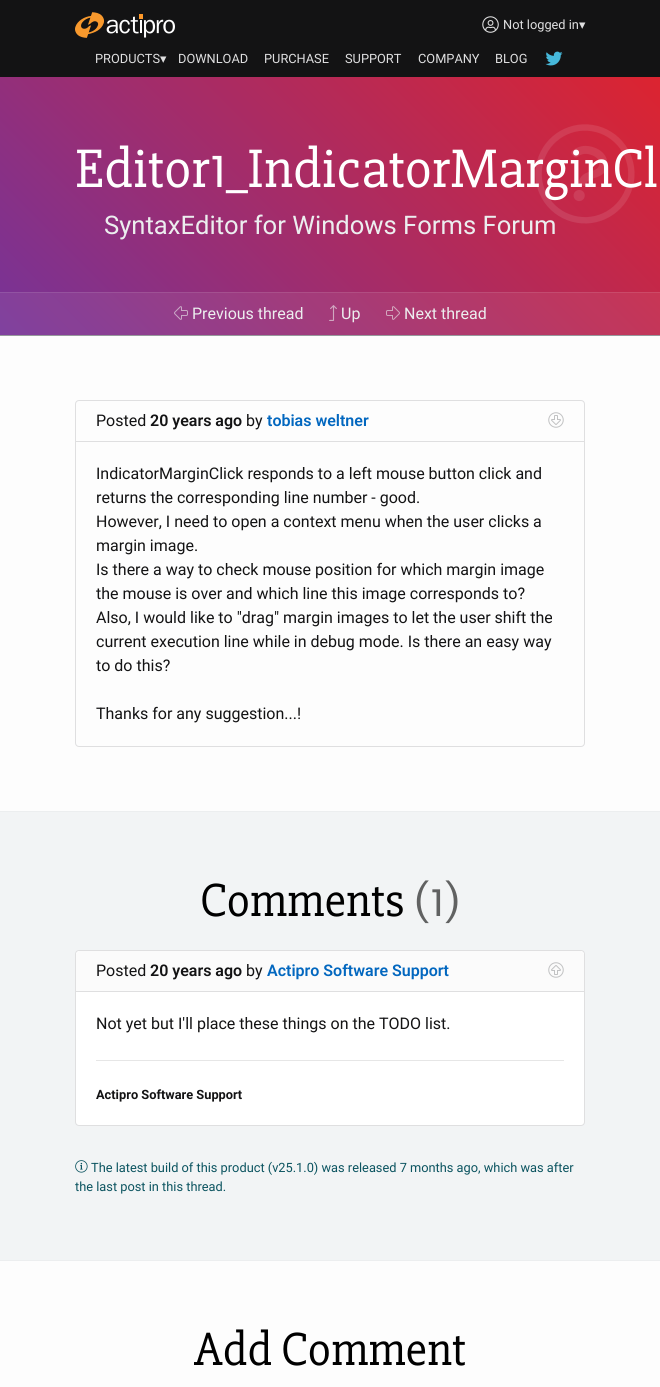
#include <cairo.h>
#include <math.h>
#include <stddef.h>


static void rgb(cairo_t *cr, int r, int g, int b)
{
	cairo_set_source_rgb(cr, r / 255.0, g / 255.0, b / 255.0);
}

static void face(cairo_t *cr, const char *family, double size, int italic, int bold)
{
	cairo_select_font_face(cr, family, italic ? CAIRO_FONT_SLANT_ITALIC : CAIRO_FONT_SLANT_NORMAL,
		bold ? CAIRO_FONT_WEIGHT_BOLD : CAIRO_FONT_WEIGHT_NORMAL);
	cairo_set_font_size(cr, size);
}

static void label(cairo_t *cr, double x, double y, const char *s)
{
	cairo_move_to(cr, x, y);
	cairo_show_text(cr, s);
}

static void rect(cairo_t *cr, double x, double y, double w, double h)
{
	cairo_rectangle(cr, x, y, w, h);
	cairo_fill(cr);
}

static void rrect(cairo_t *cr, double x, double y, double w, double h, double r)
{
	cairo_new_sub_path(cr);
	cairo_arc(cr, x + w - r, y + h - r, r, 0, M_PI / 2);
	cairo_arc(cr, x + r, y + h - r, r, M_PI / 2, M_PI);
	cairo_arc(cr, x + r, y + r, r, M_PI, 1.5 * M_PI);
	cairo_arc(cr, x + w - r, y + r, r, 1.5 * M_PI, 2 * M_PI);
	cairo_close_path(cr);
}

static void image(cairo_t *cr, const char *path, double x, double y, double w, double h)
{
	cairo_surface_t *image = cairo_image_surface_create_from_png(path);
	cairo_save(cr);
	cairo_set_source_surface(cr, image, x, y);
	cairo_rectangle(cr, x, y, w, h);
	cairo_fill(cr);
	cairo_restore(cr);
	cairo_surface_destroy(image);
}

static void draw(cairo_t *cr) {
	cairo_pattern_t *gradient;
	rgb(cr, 19, 19, 20);
	cairo_paint(cr);
	image(cr, "image0.png", 75, 12, 100, 26);
	image(cr, "image1.png", 482, 16, 17, 17);
	face(cr, "Roboto", 12.8, 0, 0);
	rgb(cr, 223, 223, 224);
	label(cr, 503, 29, "Not logged in");
	face(cr, "DejaVu Sans", 12.8, 0, 0);
	label(cr, 579, 29, "▾");
	face(cr, "Roboto", 12.8, 0, 0);
	label(cr, 95, 63, "PRODUCTS");
	face(cr, "DejaVu Sans", 12.8, 0, 0);
	label(cr, 160, 63, "▾");
	face(cr, "Roboto", 12.8, 0, 0);
	label(cr, 178, 63, "DOWNLOAD");
	label(cr, 264, 63, "PURCHASE");
	label(cr, 345, 63, "SUPPORT");
	label(cr, 418, 63, "COMPANY");
	label(cr, 495, 63, "BLOG");
	image(cr, "image2.png", 545, 51, 18, 15);
	gradient = cairo_pattern_create_linear(101, 436, 560, -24);
	cairo_pattern_add_color_stop_rgba(gradient, 0, 0.463, 0.2, 0.596, 1);
	cairo_pattern_add_color_stop_rgba(gradient, 1, 0.863, 0.141, 0.188, 1);
	cairo_set_source(cr, gradient);
	cairo_pattern_destroy(gradient);
	rect(cr, 0, 77, 660, 258);
	rgb(cr, 150, 153, 156);
	rect(cr, 0, 335, 660, 1);
	face(cr, "Slabo 27px", 56, 0, 0);
	rgb(cr, 255, 255, 255);
	label(cr, 75, 187, "Editor1_IndicatorMarginCl");
	face(cr, "Roboto", 25.6, 0, 0);
	rgb(cr, 236, 238, 239);
	label(cr, 104, 234, "SyntaxEditor for Windows Forms Forum");
	image(cr, "image3.png", 535, 124, 100, 100);
	cairo_set_source_rgba(cr, 1, 1, 1, 0.07);
	rect(cr, 0, 292, 660, 43);
	cairo_set_source_rgba(cr, 1, 1, 1, 0.1);
	rect(cr, 0, 292, 660, 1);
	image(cr, "image4.png", 174, 306, 14, 14);
	face(cr, "Roboto", 16, 0, 0);
	rgb(cr, 236, 238, 239);
	label(cr, 192, 319, "Previous thread");
	image(cr, "image5.png", 329, 305, 8, 16);
	label(cr, 341, 319, "Up");
	image(cr, "image6.png", 386, 306, 14, 14);
	label(cr, 404, 319, "Next thread");
	rgb(cr, 253, 253, 253);
	rect(cr, 0, 336, 660, 475);
	rrect(cr, 75.5, 400.5, 509, 346, 3.5);
	rgb(cr, 223, 223, 224);
	cairo_set_line_width(cr, 1);
	cairo_stroke(cr);
	rect(cr, 76, 441, 508, 1);
	rgb(cr, 19, 19, 20);
	label(cr, 96, 426, "Posted");
	face(cr, "Roboto SemiBold", 16, 0, 0);
	label(cr, 150, 426, "20 years ago");
	face(cr, "Roboto", 16, 0, 0);
	label(cr, 246, 426, "by");
	face(cr, "Roboto SemiBold", 16, 0, 0);
	rgb(cr, 2, 103, 191);
	label(cr, 267, 426, "tobias weltner");
	image(cr, "image7.png", 548, 412, 16, 16);
	face(cr, "Roboto", 16, 0, 0);
	rgb(cr, 19, 19, 20);
	label(cr, 96, 479, "IndicatorMarginClick responds to a left mouse button click and");
	label(cr, 96, 503, "returns the corresponding line number - good.");
	label(cr, 96, 527, "However, I need to open a context menu when the user clicks a");
	label(cr, 96, 551, "margin image.");
	label(cr, 96, 575, "Is there a way to check mouse position for which margin image");
	label(cr, 96, 599, "the mouse is over and which line this image corresponds to?");
	label(cr, 96, 623, "Also, I would like to \"drag\" margin images to let the user shift the");
	label(cr, 96, 647, "current execution line while in debug mode. Is there an easy way");
	label(cr, 96, 671, "to do this?");
	label(cr, 96, 719, "Thanks for any suggestion...!");
	rgb(cr, 242, 244, 245);
	rect(cr, 0, 812, 660, 448);
	rgb(cr, 236, 238, 239);
	rect(cr, 0, 811, 660, 1);
	rect(cr, 0, 1260, 660, 1);
	face(cr, "Slabo 27px", 48, 0, 0);
	rgb(cr, 0, 0, 0);
	label(cr, 200, 916, "Comments");
	rgb(cr, 97, 98, 98);
	label(cr, 414, 916, "(1)");
	rgb(cr, 255, 255, 255);
	rrect(cr, 75.5, 950.5, 509, 175, 3.5);
	cairo_fill_preserve(cr);
	rgb(cr, 223, 223, 224);
	cairo_stroke(cr);
	rgb(cr, 251, 251, 251);
	cairo_new_path(cr);
	cairo_move_to(cr, 80, 951);
	cairo_line_to(cr, 580, 951);
	cairo_curve_to(cr, 582, 951, 584, 953, 584, 955);
	cairo_line_to(cr, 584, 992);
	cairo_line_to(cr, 76, 992);
	cairo_line_to(cr, 76, 955);
	cairo_curve_to(cr, 76, 953, 78, 951, 80, 951);
	cairo_close_path(cr);
	cairo_fill(cr);
	rgb(cr, 223, 223, 224);
	rect(cr, 76, 991, 508, 1);
	face(cr, "Roboto", 16, 0, 0);
	rgb(cr, 19, 19, 20);
	label(cr, 96, 976, "Posted");
	face(cr, "Roboto SemiBold", 16, 0, 0);
	label(cr, 150, 976, "20 years ago");
	face(cr, "Roboto", 16, 0, 0);
	label(cr, 246, 976, "by");
	face(cr, "Roboto SemiBold", 16, 0, 0);
	rgb(cr, 2, 103, 191);
	label(cr, 267, 976, "Actipro Software Support");
	image(cr, "image8.png", 548, 962, 16, 16);
	face(cr, "Roboto", 16, 0, 0);
	rgb(cr, 19, 19, 20);
	label(cr, 96, 1029, "Not yet but I'll place these things on the TODO list.");
	rgb(cr, 230, 230, 230);
	rect(cr, 96, 1060, 468, 1);
	face(cr, "Roboto", 12.8, 0, 1);
	rgb(cr, 19, 19, 20);
	label(cr, 96, 1099, "Actipro Software Support");
	image(cr, "image9.png", 75, 1160, 13, 13);
	face(cr, "Roboto", 12.8, 0, 0);
	rgb(cr, 12, 84, 96);
	label(cr, 91, 1172, "The latest build of this product (v25.1.0) was released 7 months ago, which was after");
	label(cr, 75, 1191, "the last post in this thread.");
	rgb(cr, 253, 253, 253);
	rect(cr, 0, 1261, 660, 126);
	face(cr, "Slabo 27px", 48, 0, 0);
	rgb(cr, 0, 0, 0);
	label(cr, 194, 1365, "Add Comment");
}

int main(void) {
	cairo_surface_t *surface = cairo_image_surface_create(CAIRO_FORMAT_RGB24, 660, 1387);
	cairo_t *cr = cairo_create(surface);
	cairo_font_options_t *options = cairo_font_options_create();
	cairo_font_options_set_hint_metrics(options, CAIRO_HINT_METRICS_OFF);
	cairo_font_options_set_hint_style(options, CAIRO_HINT_STYLE_NONE);
	cairo_set_font_options(cr, options);
	cairo_set_miter_limit(cr, 4);
	draw(cr);
	cairo_surface_write_to_png(surface, "render.png");
	cairo_font_options_destroy(options);
	cairo_destroy(cr);
	cairo_surface_destroy(surface);
	return 0;
}
